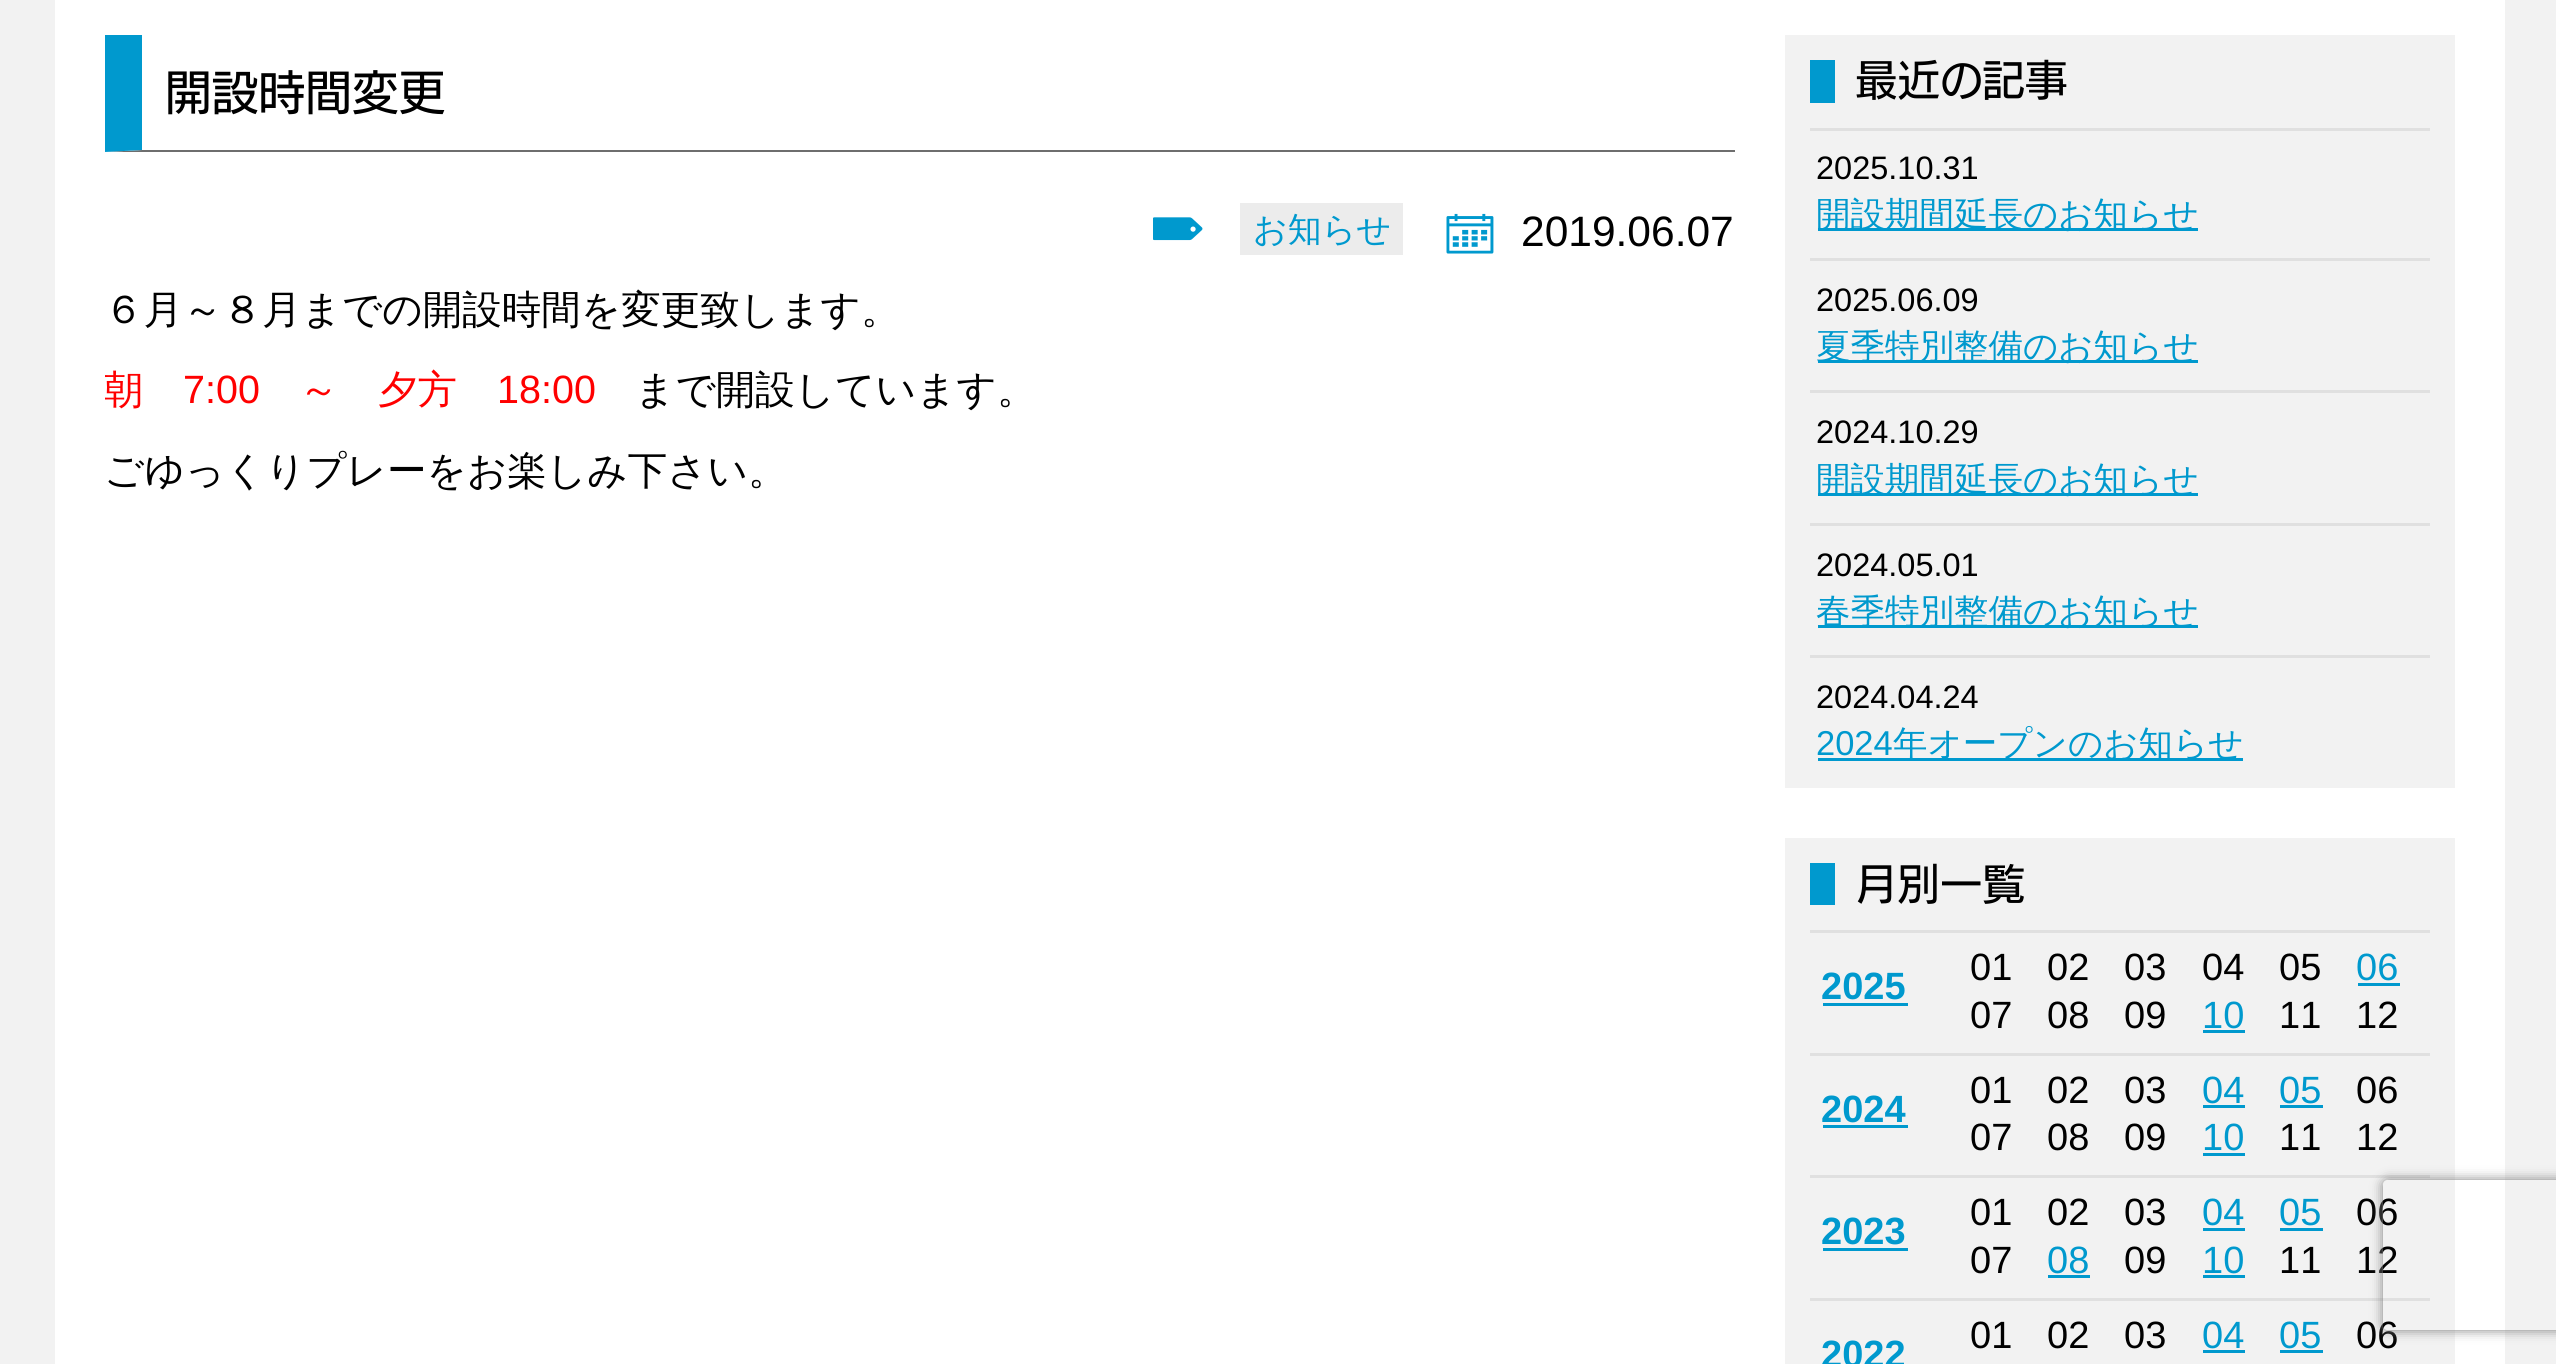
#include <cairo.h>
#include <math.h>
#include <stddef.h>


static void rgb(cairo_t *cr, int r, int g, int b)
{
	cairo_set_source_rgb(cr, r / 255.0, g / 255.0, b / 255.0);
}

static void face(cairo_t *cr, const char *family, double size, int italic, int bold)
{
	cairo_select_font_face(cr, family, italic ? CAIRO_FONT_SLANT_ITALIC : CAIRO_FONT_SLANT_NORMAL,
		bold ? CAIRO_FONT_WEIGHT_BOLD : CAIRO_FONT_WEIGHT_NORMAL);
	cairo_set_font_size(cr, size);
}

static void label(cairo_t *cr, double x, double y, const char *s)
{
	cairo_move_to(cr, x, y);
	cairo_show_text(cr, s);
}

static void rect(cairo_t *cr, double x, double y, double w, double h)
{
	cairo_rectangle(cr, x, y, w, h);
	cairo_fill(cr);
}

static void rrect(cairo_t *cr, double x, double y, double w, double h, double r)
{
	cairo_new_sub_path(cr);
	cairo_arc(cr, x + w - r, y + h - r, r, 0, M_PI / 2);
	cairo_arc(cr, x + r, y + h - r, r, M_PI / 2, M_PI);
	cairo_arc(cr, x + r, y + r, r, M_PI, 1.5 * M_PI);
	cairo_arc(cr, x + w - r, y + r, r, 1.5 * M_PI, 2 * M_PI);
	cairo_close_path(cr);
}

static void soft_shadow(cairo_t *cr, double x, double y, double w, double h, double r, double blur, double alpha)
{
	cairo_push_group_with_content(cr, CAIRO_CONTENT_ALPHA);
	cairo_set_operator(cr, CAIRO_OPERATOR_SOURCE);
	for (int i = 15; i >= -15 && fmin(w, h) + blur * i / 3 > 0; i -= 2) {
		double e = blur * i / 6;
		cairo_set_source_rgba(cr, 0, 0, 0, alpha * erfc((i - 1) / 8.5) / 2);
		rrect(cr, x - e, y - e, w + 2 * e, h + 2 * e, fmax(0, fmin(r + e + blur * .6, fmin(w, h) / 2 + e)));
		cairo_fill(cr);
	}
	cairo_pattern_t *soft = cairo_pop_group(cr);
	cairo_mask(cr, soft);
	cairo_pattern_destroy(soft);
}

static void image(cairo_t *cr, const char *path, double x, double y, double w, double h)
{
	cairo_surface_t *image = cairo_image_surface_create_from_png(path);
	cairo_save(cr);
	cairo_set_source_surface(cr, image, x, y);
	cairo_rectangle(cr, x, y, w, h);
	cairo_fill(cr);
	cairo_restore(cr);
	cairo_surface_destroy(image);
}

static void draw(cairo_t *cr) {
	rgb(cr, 242, 242, 242);
	cairo_paint(cr);
	rgb(cr, 255, 255, 255);
	rect(cr, 55, 0, 2450, 1364);
	rgb(cr, 110, 110, 110);
	cairo_new_path(cr);
	cairo_move_to(cr, 1735, 152);
	cairo_line_to(cr, 105, 152);
	cairo_line_to(cr, 142, 150);
	cairo_line_to(cr, 1735, 150);
	cairo_close_path(cr);
	cairo_fill(cr);
	rgb(cr, 0, 153, 206);
	cairo_new_path(cr);
	cairo_move_to(cr, 105, 152);
	cairo_line_to(cr, 105, 35);
	cairo_line_to(cr, 142, 35);
	cairo_line_to(cr, 142, 150);
	cairo_close_path(cr);
	cairo_fill(cr);
	face(cr, "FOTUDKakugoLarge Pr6 Medium", 46.75, 0, 0);
	rgb(cr, 0, 0, 0);
	label(cr, 165, 110, "開設時間変更");
	image(cr, "image0.png", 1153, 217, 50, 24);
	rgb(cr, 236, 236, 236);
	rect(cr, 1240, 203, 163, 52);
	face(cr, "WenQuanYi Zen Hei Medium", 34, 0, 0);
	rgb(cr, 0, 153, 206);
	label(cr, 1253, 241, "お知らせ");
	image(cr, "image1.png", 1446, 213, 48, 41);
	face(cr, "Liberation Sans", 42.5, 0, 0);
	rgb(cr, 0, 0, 0);
	label(cr, 1521, 246, "2019.06.07");
	face(cr, "WenQuanYi Zen Hei Medium", 39.5, 0, 0);
	label(cr, 104, 323, "６月～８月までの開設時間を変更致します。");
	cairo_save(cr);
	cairo_rectangle(cr, 105, 365, 1630, 53);
	cairo_clip(cr);
	rgb(cr, 255, 0, 0);
	label(cr, 104, 403, "朝");
	cairo_restore(cr);
	face(cr, "Liberation Sans", 39.5, 0, 0);
	rgb(cr, 255, 0, 0);
	label(cr, 183, 403, "7:00");
	face(cr, "WenQuanYi Zen Hei Medium", 39.5, 0, 0);
	label(cr, 299, 403, "～　夕方");
	face(cr, "Liberation Sans", 39.5, 0, 0);
	label(cr, 497, 403, "18:00");
	face(cr, "WenQuanYi Zen Hei Medium", 39.5, 0, 0);
	rgb(cr, 0, 0, 0);
	label(cr, 635, 403, "まで開設しています。");
	label(cr, 104, 484, "ごゆっくりプレーをお楽しみ下さい。");
	rgb(cr, 242, 242, 242);
	rect(cr, 1785, 35, 670, 753);
	rgb(cr, 0, 153, 206);
	rect(cr, 1810, 60, 25, 43);
	face(cr, "FOTUDKakugoLarge Pr6 Medium", 42.5, 0, 0);
	rgb(cr, 0, 0, 0);
	label(cr, 1855, 96, "最近の記事");
	rgb(cr, 224, 224, 224);
	rect(cr, 1810, 128, 620, 3);
	face(cr, "Liberation Sans", 32.5, 0, 0);
	rgb(cr, 0, 0, 0);
	label(cr, 1816, 179, "2025.10.31");
	rgb(cr, 0, 153, 206);
	rect(cr, 1818, 228, 380, 3);
	face(cr, "WenQuanYi Zen Hei Medium", 34.5, 0, 0);
	label(cr, 1816, 226, "開設期間延長のお知らせ");
	rgb(cr, 224, 224, 224);
	rect(cr, 1810, 258, 620, 3);
	face(cr, "Liberation Sans", 32.5, 0, 0);
	rgb(cr, 0, 0, 0);
	label(cr, 1816, 311, "2025.06.09");
	rgb(cr, 0, 153, 206);
	rect(cr, 1818, 360, 380, 3);
	face(cr, "WenQuanYi Zen Hei Medium", 34.5, 0, 0);
	label(cr, 1816, 358, "夏季特別整備のお知らせ");
	rgb(cr, 224, 224, 224);
	rect(cr, 1810, 390, 620, 3);
	face(cr, "Liberation Sans", 32.5, 0, 0);
	rgb(cr, 0, 0, 0);
	label(cr, 1816, 443, "2024.10.29");
	rgb(cr, 0, 153, 206);
	rect(cr, 1818, 493, 380, 3);
	face(cr, "WenQuanYi Zen Hei Medium", 34.5, 0, 0);
	label(cr, 1816, 491, "開設期間延長のお知らせ");
	rgb(cr, 224, 224, 224);
	rect(cr, 1810, 523, 620, 3);
	face(cr, "Liberation Sans", 32.5, 0, 0);
	rgb(cr, 0, 0, 0);
	label(cr, 1816, 576, "2024.05.01");
	rgb(cr, 0, 153, 206);
	rect(cr, 1818, 625, 380, 3);
	face(cr, "WenQuanYi Zen Hei Medium", 34.5, 0, 0);
	label(cr, 1816, 623, "春季特別整備のお知らせ");
	rgb(cr, 224, 224, 224);
	rect(cr, 1810, 655, 620, 3);
	face(cr, "Liberation Sans", 32.5, 0, 0);
	rgb(cr, 0, 0, 0);
	label(cr, 1816, 708, "2024.04.24");
	face(cr, "Liberation Sans", 34.5, 0, 0);
	rgb(cr, 0, 153, 206);
	label(cr, 1816, 755, "2024");
	rect(cr, 1818, 758, 425, 3);
	face(cr, "WenQuanYi Zen Hei Medium", 34.5, 0, 0);
	label(cr, 1893, 755, "年オープンのお知らせ");
	rgb(cr, 242, 242, 242);
	rect(cr, 1785, 838, 670, 526);
	rgb(cr, 0, 153, 206);
	rect(cr, 1810, 863, 25, 42);
	face(cr, "FOTUDKakugoLarge Pr6 Medium", 42.5, 0, 0);
	rgb(cr, 0, 0, 0);
	label(cr, 1855, 900, "月別一覧");
	rgb(cr, 224, 224, 224);
	rect(cr, 1810, 930, 620, 3);
	face(cr, "Liberation Sans", 38, 0, 0);
	rgb(cr, 0, 0, 0);
	label(cr, 1970, 980, "01");
	label(cr, 2047, 980, "02");
	label(cr, 2124, 980, "03");
	label(cr, 2202, 980, "04");
	label(cr, 2279, 980, "05");
	rgb(cr, 0, 153, 206);
	label(cr, 2356, 980, "06");
	rect(cr, 2358, 983, 42, 3);
	face(cr, "Liberation Sans", 38, 0, 1);
	label(cr, 1821, 999, "2025");
	rect(cr, 1823, 1003, 85, 3);
	face(cr, "Liberation Sans", 38, 0, 0);
	rgb(cr, 0, 0, 0);
	label(cr, 1970, 1028, "07");
	label(cr, 2047, 1028, "08");
	label(cr, 2124, 1028, "09");
	rgb(cr, 0, 153, 206);
	label(cr, 2202, 1028, "10");
	rect(cr, 2203, 1030, 42, 3);
	rgb(cr, 0, 0, 0);
	label(cr, 2279, 1028, "11");
	label(cr, 2356, 1028, "12");
	rgb(cr, 224, 224, 224);
	rect(cr, 1810, 1053, 620, 3);
	rgb(cr, 0, 0, 0);
	label(cr, 1970, 1103, "01");
	label(cr, 2047, 1103, "02");
	label(cr, 2124, 1103, "03");
	rgb(cr, 0, 153, 206);
	label(cr, 2202, 1103, "04");
	rect(cr, 2203, 1105, 42, 3);
	label(cr, 2279, 1103, "05");
	rect(cr, 2280, 1105, 43, 3);
	rgb(cr, 0, 0, 0);
	label(cr, 2356, 1103, "06");
	face(cr, "Liberation Sans", 38, 0, 1);
	rgb(cr, 0, 153, 206);
	label(cr, 1821, 1122, "2024");
	rect(cr, 1823, 1125, 85, 3);
	face(cr, "Liberation Sans", 38, 0, 0);
	rgb(cr, 0, 0, 0);
	label(cr, 1970, 1150, "07");
	label(cr, 2047, 1150, "08");
	label(cr, 2124, 1150, "09");
	rgb(cr, 0, 153, 206);
	label(cr, 2202, 1150, "10");
	rect(cr, 2203, 1153, 42, 3);
	rgb(cr, 0, 0, 0);
	label(cr, 2279, 1150, "11");
	label(cr, 2356, 1150, "12");
	rgb(cr, 224, 224, 224);
	rect(cr, 1810, 1175, 620, 3);
	rgb(cr, 0, 0, 0);
	label(cr, 1970, 1225, "01");
	label(cr, 2047, 1225, "02");
	label(cr, 2124, 1225, "03");
	rgb(cr, 0, 153, 206);
	label(cr, 2202, 1225, "04");
	rect(cr, 2203, 1228, 42, 3);
	label(cr, 2279, 1225, "05");
	rect(cr, 2280, 1228, 43, 3);
	rgb(cr, 0, 0, 0);
	label(cr, 2356, 1225, "06");
	face(cr, "Liberation Sans", 38, 0, 1);
	rgb(cr, 0, 153, 206);
	label(cr, 1821, 1244, "2023");
	rect(cr, 1823, 1248, 85, 3);
	face(cr, "Liberation Sans", 38, 0, 0);
	rgb(cr, 0, 0, 0);
	label(cr, 1970, 1273, "07");
	rgb(cr, 0, 153, 206);
	label(cr, 2047, 1273, "08");
	rect(cr, 2048, 1275, 42, 3);
	rgb(cr, 0, 0, 0);
	label(cr, 2124, 1273, "09");
	rgb(cr, 0, 153, 206);
	label(cr, 2202, 1273, "10");
	rect(cr, 2203, 1275, 42, 3);
	rgb(cr, 0, 0, 0);
	label(cr, 2279, 1273, "11");
	label(cr, 2356, 1273, "12");
	rgb(cr, 224, 224, 224);
	rect(cr, 1810, 1298, 620, 3);
	rgb(cr, 0, 0, 0);
	label(cr, 1970, 1348, "01");
	label(cr, 2047, 1348, "02");
	label(cr, 2124, 1348, "03");
	rgb(cr, 0, 153, 206);
	label(cr, 2202, 1348, "04");
	rect(cr, 2203, 1350, 42, 3);
	label(cr, 2279, 1348, "05");
	rect(cr, 2280, 1350, 43, 3);
	rgb(cr, 0, 0, 0);
	label(cr, 2356, 1348, "06");
	face(cr, "Liberation Sans", 38, 0, 1);
	rgb(cr, 0, 153, 206);
	label(cr, 1821, 1367, "2022");
	cairo_save(cr);
	cairo_set_fill_rule(cr, CAIRO_FILL_RULE_EVEN_ODD);
	cairo_new_path(cr);
	cairo_move_to(cr, 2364, 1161);
	cairo_line_to(cr, 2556, 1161);
	cairo_line_to(cr, 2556, 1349);
	cairo_line_to(cr, 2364, 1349);
	cairo_close_path(cr);
	cairo_move_to(cr, 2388, 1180);
	cairo_line_to(cr, 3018, 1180);
	cairo_curve_to(cr, 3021, 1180, 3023, 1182, 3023, 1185);
	cairo_line_to(cr, 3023, 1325);
	cairo_curve_to(cr, 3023, 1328, 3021, 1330, 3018, 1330);
	cairo_line_to(cr, 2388, 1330);
	cairo_curve_to(cr, 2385, 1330, 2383, 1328, 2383, 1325);
	cairo_line_to(cr, 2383, 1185);
	cairo_curve_to(cr, 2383, 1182, 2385, 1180, 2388, 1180);
	cairo_close_path(cr);
	cairo_clip(cr);
	rgb(cr, 128, 128, 128);
	soft_shadow(cr, 2383, 1180, 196, 150, 5, 6, 1);
	cairo_restore(cr);
}

int main(void) {
	cairo_surface_t *surface = cairo_image_surface_create(CAIRO_FORMAT_RGB24, 2556, 1364);
	cairo_t *cr = cairo_create(surface);
	cairo_font_options_t *options = cairo_font_options_create();
	cairo_font_options_set_hint_metrics(options, CAIRO_HINT_METRICS_OFF);
	cairo_font_options_set_hint_style(options, CAIRO_HINT_STYLE_NONE);
	cairo_set_font_options(cr, options);
	cairo_set_miter_limit(cr, 4);
	draw(cr);
	cairo_surface_write_to_png(surface, "render.png");
	cairo_font_options_destroy(options);
	cairo_destroy(cr);
	cairo_surface_destroy(surface);
	return 0;
}
